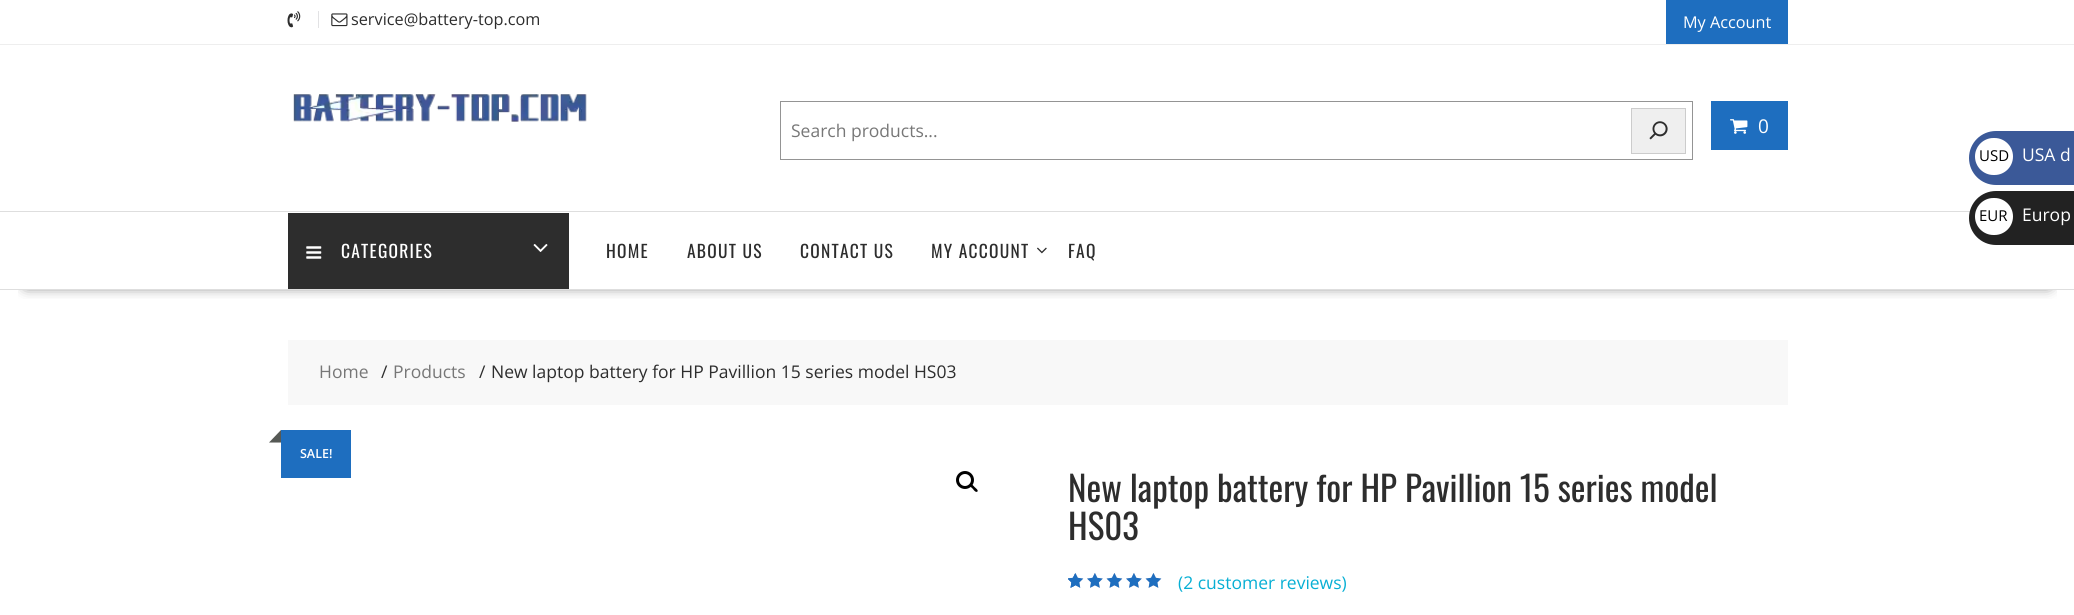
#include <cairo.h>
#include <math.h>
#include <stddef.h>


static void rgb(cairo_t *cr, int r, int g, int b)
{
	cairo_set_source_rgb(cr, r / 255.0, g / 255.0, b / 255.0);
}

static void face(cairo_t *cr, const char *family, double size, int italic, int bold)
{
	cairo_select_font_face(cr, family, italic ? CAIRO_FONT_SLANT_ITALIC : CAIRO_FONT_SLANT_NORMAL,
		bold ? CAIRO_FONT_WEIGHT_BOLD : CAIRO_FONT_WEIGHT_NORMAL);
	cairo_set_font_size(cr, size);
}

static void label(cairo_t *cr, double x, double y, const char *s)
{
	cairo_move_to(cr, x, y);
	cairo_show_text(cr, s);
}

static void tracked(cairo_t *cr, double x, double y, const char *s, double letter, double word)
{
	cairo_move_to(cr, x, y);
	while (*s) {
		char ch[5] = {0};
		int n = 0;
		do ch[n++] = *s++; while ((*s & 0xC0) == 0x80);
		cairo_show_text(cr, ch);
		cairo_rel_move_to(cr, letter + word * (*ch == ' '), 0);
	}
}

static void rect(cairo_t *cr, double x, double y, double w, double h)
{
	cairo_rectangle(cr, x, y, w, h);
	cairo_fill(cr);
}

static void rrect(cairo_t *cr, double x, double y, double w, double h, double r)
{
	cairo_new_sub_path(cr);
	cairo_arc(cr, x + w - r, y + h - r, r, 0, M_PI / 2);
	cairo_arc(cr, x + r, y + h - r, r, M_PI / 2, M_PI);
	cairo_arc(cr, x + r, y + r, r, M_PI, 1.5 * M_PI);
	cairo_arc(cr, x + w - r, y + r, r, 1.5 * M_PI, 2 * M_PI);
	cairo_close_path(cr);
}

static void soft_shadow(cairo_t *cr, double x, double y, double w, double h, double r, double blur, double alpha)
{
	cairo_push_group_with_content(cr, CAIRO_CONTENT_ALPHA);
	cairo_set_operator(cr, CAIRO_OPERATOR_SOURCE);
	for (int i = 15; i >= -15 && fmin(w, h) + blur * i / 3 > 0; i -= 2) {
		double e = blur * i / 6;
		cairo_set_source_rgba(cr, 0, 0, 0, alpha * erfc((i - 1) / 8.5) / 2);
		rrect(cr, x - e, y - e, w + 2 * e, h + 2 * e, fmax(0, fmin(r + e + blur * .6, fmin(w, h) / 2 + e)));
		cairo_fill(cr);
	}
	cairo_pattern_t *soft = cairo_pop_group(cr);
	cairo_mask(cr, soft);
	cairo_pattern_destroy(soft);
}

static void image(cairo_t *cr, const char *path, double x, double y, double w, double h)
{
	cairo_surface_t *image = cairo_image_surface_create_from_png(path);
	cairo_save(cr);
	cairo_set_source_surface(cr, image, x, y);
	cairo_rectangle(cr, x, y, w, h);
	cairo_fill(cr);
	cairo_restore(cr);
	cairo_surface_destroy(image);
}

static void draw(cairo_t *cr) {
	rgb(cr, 255, 255, 255);
	cairo_paint(cr);
	rgb(cr, 238, 238, 238);
	rect(cr, 0, 44, 2074, 1);
	image(cr, "image0.png", 287, 11, 14, 17);
	rgb(cr, 226, 226, 228);
	rect(cr, 318, 11, 1, 17);
	image(cr, "image1.png", 331, 13, 17, 14);
	face(cr, "Open Sans", 16.25, 0, 0);
	rgb(cr, 45, 45, 45);
	label(cr, 351, 25, "service@battery-top.com");
	rgb(cr, 30, 110, 191);
	rect(cr, 1666, 0, 122, 44);
	rgb(cr, 255, 255, 255);
	label(cr, 1683, 28, "My Account");
	image(cr, "image2.png", 293, 94, 294, 28);
	cairo_rectangle(cr, 780.5, 101.5, 912, 58);
	rgb(cr, 148, 148, 148);
	cairo_set_line_width(cr, 1);
	cairo_stroke(cr);
	face(cr, "Open Sans", 17.5, 0, 0);
	rgb(cr, 119, 119, 119);
	label(cr, 791, 137, "Search products...");
	rgb(cr, 239, 239, 239);
	cairo_rectangle(cr, 1631.5, 108.5, 54, 45);
	cairo_fill_preserve(cr);
	rgb(cr, 204, 204, 204);
	cairo_stroke(cr);
	image(cr, "image3.png", 1649, 121, 19, 19);
	rgb(cr, 30, 110, 191);
	rect(cr, 1711, 101, 77, 49);
	image(cr, "image4.png", 1730, 119, 18, 15);
	face(cr, "Open Sans", 19, 0, 0);
	rgb(cr, 255, 255, 255);
	label(cr, 1758, 133, "0");
	cairo_save(cr);
	cairo_rectangle(cr, 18, 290, 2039, 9);
	cairo_clip(cr);
	rgb(cr, 0, 0, 0);
	soft_shadow(cr, 26, 259, 2023, 26, 0, 7, 0.75);
	cairo_restore(cr);
	rgb(cr, 222, 222, 222);
	rect(cr, 0, 211, 1970, 1);
	rect(cr, 0, 289, 2074, 1);
	rgb(cr, 45, 45, 45);
	rect(cr, 288, 213, 281, 76);
	image(cr, "image5.png", 306, 246, 16, 13);
	face(cr, "Oswald", 17.5, 0, 0);
	rgb(cr, 255, 255, 255);
	tracked(cr, 341, 258, "CATEGORIES", 1.25, 0);
	image(cr, "image6.png", 533, 244, 15, 8);
	rgb(cr, 45, 45, 45);
	tracked(cr, 606, 258, "HOME", 1.25, 0);
	tracked(cr, 687, 258, "ABOUT US", 1.25, 0);
	tracked(cr, 800, 258, "CONTACT US", 1.25, 0);
	tracked(cr, 931, 258, "MY ACCOUNT", 1.25, 0);
	image(cr, "image7.png", 1037, 247, 10, 7);
	tracked(cr, 1068, 258, "FAQ", 1.25, 0);
	rgb(cr, 248, 248, 248);
	rect(cr, 288, 340, 1500, 65);
	face(cr, "Open Sans", 17.5, 0, 0);
	rgb(cr, 119, 119, 119);
	label(cr, 319, 378, "Home");
	rgb(cr, 45, 45, 45);
	label(cr, 381, 378, "/");
	rgb(cr, 119, 119, 119);
	label(cr, 393, 378, "Products");
	rgb(cr, 45, 45, 45);
	label(cr, 479, 378, "/");
	label(cr, 491, 378, "New laptop battery for HP Pavillion 15 series model HS03");
	rgb(cr, 30, 110, 191);
	rect(cr, 281, 430, 70, 48);
	rgb(cr, 86, 89, 85);
	cairo_new_path(cr);
	cairo_move_to(cr, 281, 430);
	cairo_line_to(cr, 281, 442.5);
	cairo_line_to(cr, 269, 442.5);
	cairo_close_path(cr);
	cairo_fill(cr);
	face(cr, "Open Sans SemiBold", 12.5, 0, 0);
	rgb(cr, 255, 255, 255);
	label(cr, 300, 458, "SALE!");
	cairo_new_path(cr);
	cairo_arc(cr, 965, 480, 7.5, 0, 2 * M_PI);
	rgb(cr, 0, 0, 0);
	cairo_set_line_width(cr, 3);
	cairo_stroke(cr);
	cairo_new_path(cr);
	cairo_move_to(cr, 970, 484.5);
	cairo_curve_to(cr, 971.5, 483, 974, 486.5, 974.5, 487);
	cairo_curve_to(cr, 975.5, 488, 978.5, 490, 977.5, 491.5);
	cairo_curve_to(cr, 976, 493, 973.5, 490, 973, 489);
	cairo_curve_to(cr, 972, 488, 969, 486, 970, 484.5);
	cairo_close_path(cr);
	cairo_fill(cr);
	face(cr, "Oswald", 35, 0, 0);
	rgb(cr, 45, 45, 45);
	label(cr, 1068, 502, "New laptop battery for HP Pavillion 15 series model");
	label(cr, 1068, 540, "HS03");
	image(cr, "image8.png", 1068, 573, 94, 15);
	image(cr, "image9.png", 1068, 573, 94, 15);
	image(cr, "image10.png", 1068, 573, 7, 15);
	face(cr, "Open Sans", 17.5, 0, 0);
	rgb(cr, 7, 175, 212);
	label(cr, 1178, 589, "(2 customer reviews)");
	rgb(cr, 59, 89, 152);
	cairo_new_path(cr);
	cairo_move_to(cr, 1996, 131);
	cairo_line_to(cr, 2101, 131);
	cairo_line_to(cr, 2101, 185);
	cairo_line_to(cr, 1996, 185);
	cairo_curve_to(cr, 1981, 185, 1969, 173, 1969, 158);
	cairo_curve_to(cr, 1969, 143, 1981, 131, 1996, 131);
	cairo_close_path(cr);
	cairo_fill(cr);
	rgb(cr, 255, 255, 255);
	rrect(cr, 1975, 138, 38, 37, 18.5);
	cairo_fill(cr);
	face(cr, "Open Sans", 15, 0, 0);
	rgb(cr, 0, 0, 0);
	label(cr, 1979, 161, "USD");
	face(cr, "Open Sans", 17.5, 0, 0);
	rgb(cr, 255, 255, 255);
	label(cr, 2022, 161, "USA d");
	rgb(cr, 34, 34, 34);
	cairo_new_path(cr);
	cairo_move_to(cr, 1996, 191);
	cairo_line_to(cr, 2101, 191);
	cairo_line_to(cr, 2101, 245);
	cairo_line_to(cr, 1996, 245);
	cairo_curve_to(cr, 1981, 245, 1969, 233, 1969, 218);
	cairo_curve_to(cr, 1969, 203, 1981, 191, 1996, 191);
	cairo_close_path(cr);
	cairo_fill(cr);
	rgb(cr, 255, 255, 255);
	rrect(cr, 1975, 198, 38, 37, 18.5);
	cairo_fill(cr);
	face(cr, "Open Sans", 15, 0, 0);
	rgb(cr, 0, 0, 0);
	label(cr, 1979, 221, "EUR");
	face(cr, "Open Sans", 17.5, 0, 0);
	rgb(cr, 255, 255, 255);
	label(cr, 2022, 221, "Europ");
}

int main(void) {
	cairo_surface_t *surface = cairo_image_surface_create(CAIRO_FORMAT_RGB24, 2074, 615);
	cairo_t *cr = cairo_create(surface);
	cairo_font_options_t *options = cairo_font_options_create();
	cairo_font_options_set_hint_metrics(options, CAIRO_HINT_METRICS_OFF);
	cairo_font_options_set_hint_style(options, CAIRO_HINT_STYLE_NONE);
	cairo_set_font_options(cr, options);
	cairo_set_miter_limit(cr, 4);
	draw(cr);
	cairo_surface_write_to_png(surface, "render.png");
	cairo_font_options_destroy(options);
	cairo_destroy(cr);
	cairo_surface_destroy(surface);
	return 0;
}
